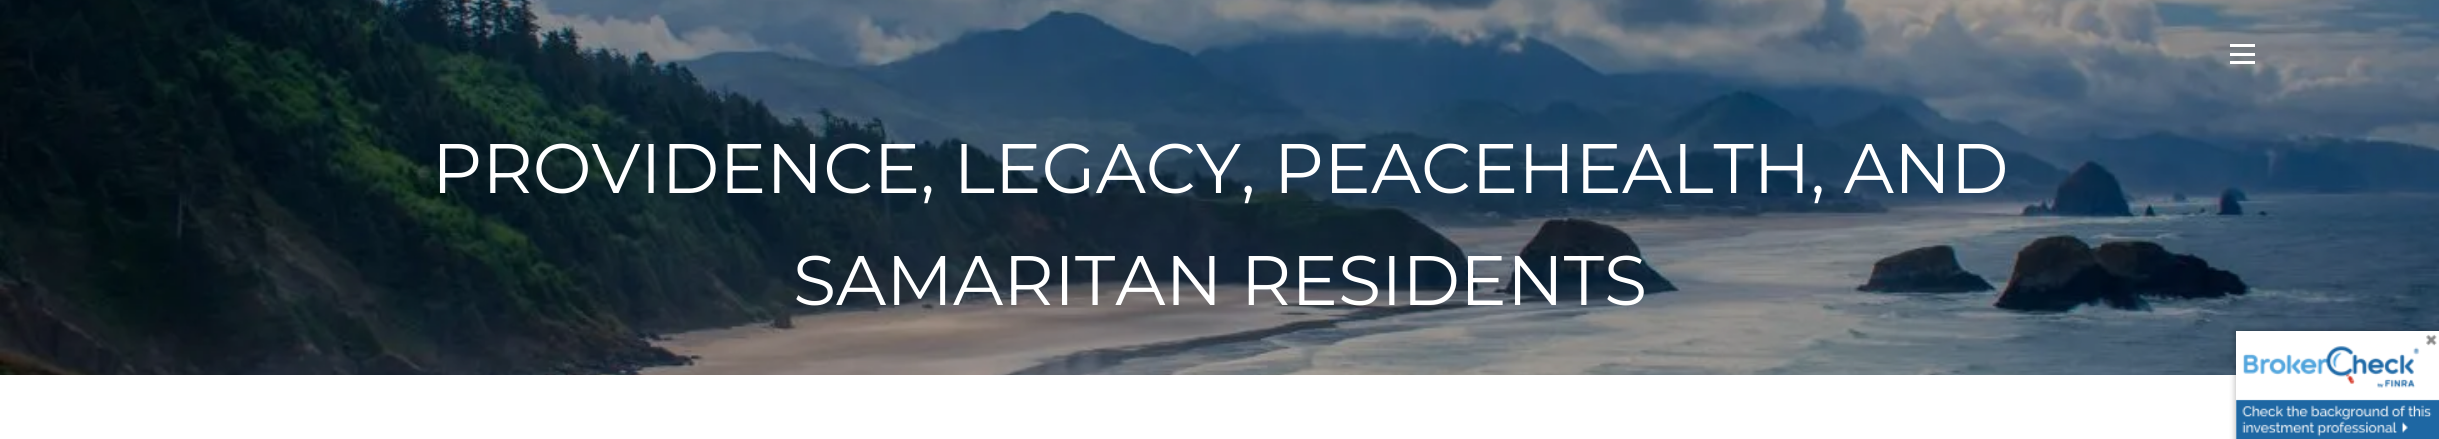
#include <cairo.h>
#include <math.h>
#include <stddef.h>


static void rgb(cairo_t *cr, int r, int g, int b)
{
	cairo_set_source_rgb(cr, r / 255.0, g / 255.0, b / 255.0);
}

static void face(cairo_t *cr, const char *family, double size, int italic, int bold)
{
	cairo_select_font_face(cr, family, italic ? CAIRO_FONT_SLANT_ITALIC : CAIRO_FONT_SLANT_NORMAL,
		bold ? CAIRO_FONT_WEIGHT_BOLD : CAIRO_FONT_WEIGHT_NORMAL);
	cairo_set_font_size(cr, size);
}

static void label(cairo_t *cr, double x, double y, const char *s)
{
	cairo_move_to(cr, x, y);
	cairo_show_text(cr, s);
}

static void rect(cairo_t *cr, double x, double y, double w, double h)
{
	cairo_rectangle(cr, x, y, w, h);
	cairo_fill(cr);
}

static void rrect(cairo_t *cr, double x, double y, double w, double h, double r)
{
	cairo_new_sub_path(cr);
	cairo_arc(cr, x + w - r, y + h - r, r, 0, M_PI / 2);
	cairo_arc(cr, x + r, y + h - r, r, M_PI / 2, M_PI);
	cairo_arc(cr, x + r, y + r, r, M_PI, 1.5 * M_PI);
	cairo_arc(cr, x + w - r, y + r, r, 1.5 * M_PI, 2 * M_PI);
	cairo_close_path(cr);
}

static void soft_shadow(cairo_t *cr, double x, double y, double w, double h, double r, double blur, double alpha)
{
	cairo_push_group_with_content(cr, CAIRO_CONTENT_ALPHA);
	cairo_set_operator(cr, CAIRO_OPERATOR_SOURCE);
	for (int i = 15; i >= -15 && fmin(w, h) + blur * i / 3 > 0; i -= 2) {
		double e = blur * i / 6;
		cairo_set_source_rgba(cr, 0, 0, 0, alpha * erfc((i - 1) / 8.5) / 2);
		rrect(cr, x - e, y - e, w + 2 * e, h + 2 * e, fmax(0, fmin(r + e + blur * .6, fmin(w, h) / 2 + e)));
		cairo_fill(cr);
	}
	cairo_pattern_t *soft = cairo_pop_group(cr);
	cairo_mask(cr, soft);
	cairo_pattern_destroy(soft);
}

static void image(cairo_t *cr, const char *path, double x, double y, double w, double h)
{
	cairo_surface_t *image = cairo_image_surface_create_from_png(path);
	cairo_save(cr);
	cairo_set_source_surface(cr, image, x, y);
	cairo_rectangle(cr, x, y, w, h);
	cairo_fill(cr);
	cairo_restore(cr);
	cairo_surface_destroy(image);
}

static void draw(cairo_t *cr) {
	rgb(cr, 255, 255, 255);
	cairo_paint(cr);
	image(cr, "image0.png", 0, 0, 2439, 375);
	rgb(cr, 255, 255, 255);
	rect(cr, 2230, 61, 25, 3);
	rect(cr, 2230, 53, 25, 3);
	rect(cr, 2230, 44, 25, 3);
	face(cr, "Montserrat Thin", 70, 0, 0);
	label(cr, 432, 193, "PROVIDENCE, LEGACY, PEACEHEALTH, AND");
	label(cr, 793, 305, "SAMARITAN RESIDENTS");
	rect(cr, 2236, 331, 203, 44);
	cairo_save(cr);
	cairo_set_fill_rule(cr, CAIRO_FILL_RULE_EVEN_ODD);
	cairo_new_path(cr);
	cairo_move_to(cr, 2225, 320);
	cairo_line_to(cr, 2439, 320);
	cairo_line_to(cr, 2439, 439);
	cairo_line_to(cr, 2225, 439);
	cairo_close_path(cr);
	cairo_move_to(cr, 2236, 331);
	cairo_line_to(cr, 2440, 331);
	cairo_line_to(cr, 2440, 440);
	cairo_line_to(cr, 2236, 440);
	cairo_close_path(cr);
	cairo_clip(cr);
	rgb(cr, 0, 0, 0);
	soft_shadow(cr, 2235, 330, 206, 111, 0, 3, 0.25);
	cairo_restore(cr);
	image(cr, "image1.png", 2236, 334, 203, 105);
}

int main(void) {
	cairo_surface_t *surface = cairo_image_surface_create(CAIRO_FORMAT_RGB24, 2439, 439);
	cairo_t *cr = cairo_create(surface);
	cairo_font_options_t *options = cairo_font_options_create();
	cairo_font_options_set_hint_metrics(options, CAIRO_HINT_METRICS_OFF);
	cairo_font_options_set_hint_style(options, CAIRO_HINT_STYLE_NONE);
	cairo_set_font_options(cr, options);
	cairo_set_miter_limit(cr, 4);
	draw(cr);
	cairo_surface_write_to_png(surface, "render.png");
	cairo_font_options_destroy(options);
	cairo_destroy(cr);
	cairo_surface_destroy(surface);
	return 0;
}
